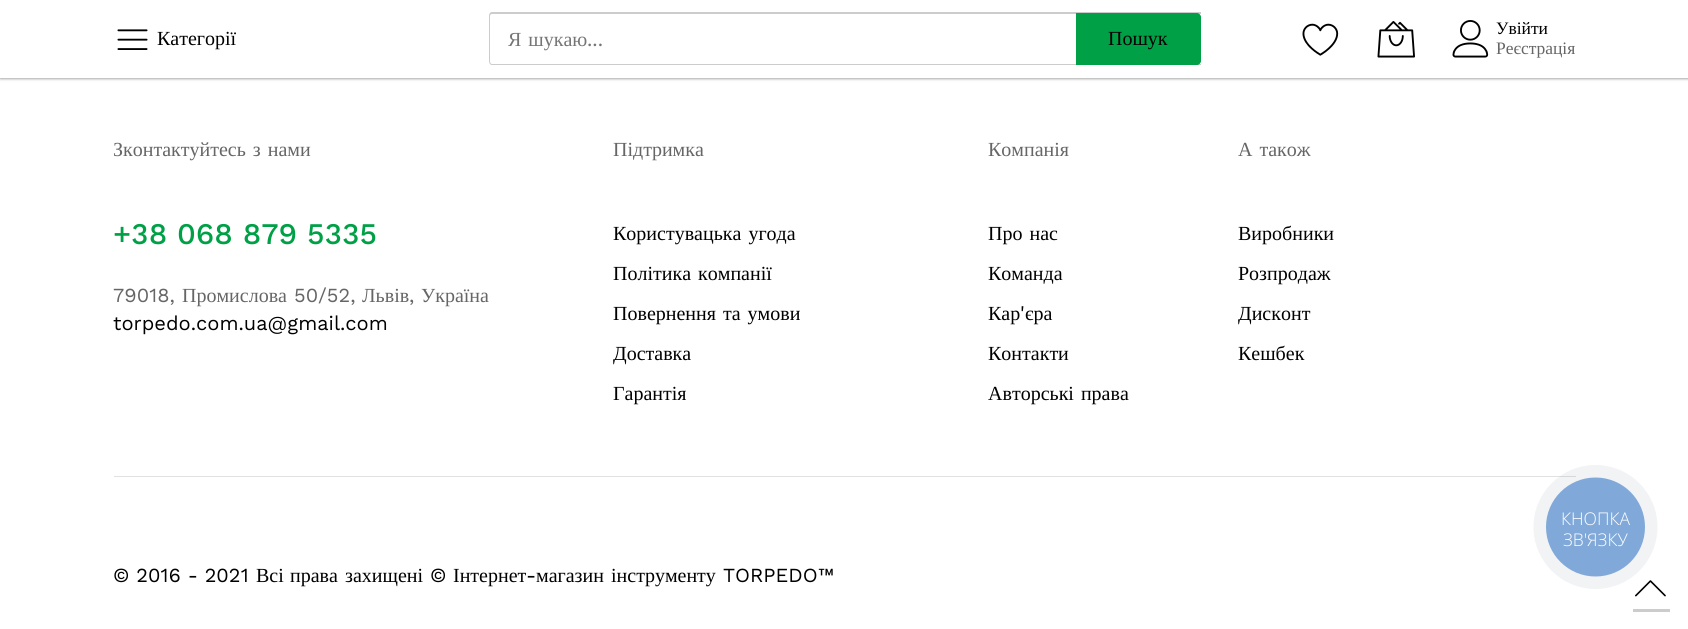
#include <cairo.h>
#include <math.h>
#include <stddef.h>


static void rgb(cairo_t *cr, int r, int g, int b)
{
	cairo_set_source_rgb(cr, r / 255.0, g / 255.0, b / 255.0);
}

static void face(cairo_t *cr, const char *family, double size, int italic, int bold)
{
	cairo_select_font_face(cr, family, italic ? CAIRO_FONT_SLANT_ITALIC : CAIRO_FONT_SLANT_NORMAL,
		bold ? CAIRO_FONT_WEIGHT_BOLD : CAIRO_FONT_WEIGHT_NORMAL);
	cairo_set_font_size(cr, size);
}

static void label(cairo_t *cr, double x, double y, const char *s)
{
	cairo_move_to(cr, x, y);
	cairo_show_text(cr, s);
}

static void tracked(cairo_t *cr, double x, double y, const char *s, double letter, double word)
{
	cairo_move_to(cr, x, y);
	while (*s) {
		char ch[5] = {0};
		int n = 0;
		do ch[n++] = *s++; while ((*s & 0xC0) == 0x80);
		cairo_show_text(cr, ch);
		cairo_rel_move_to(cr, letter + word * (*ch == ' '), 0);
	}
}

static void rect(cairo_t *cr, double x, double y, double w, double h)
{
	cairo_rectangle(cr, x, y, w, h);
	cairo_fill(cr);
}

static void rrect(cairo_t *cr, double x, double y, double w, double h, double r)
{
	cairo_new_sub_path(cr);
	cairo_arc(cr, x + w - r, y + h - r, r, 0, M_PI / 2);
	cairo_arc(cr, x + r, y + h - r, r, M_PI / 2, M_PI);
	cairo_arc(cr, x + r, y + r, r, M_PI, 1.5 * M_PI);
	cairo_arc(cr, x + w - r, y + r, r, 1.5 * M_PI, 2 * M_PI);
	cairo_close_path(cr);
}

static void soft_shadow(cairo_t *cr, double x, double y, double w, double h, double r, double blur, double alpha)
{
	cairo_push_group_with_content(cr, CAIRO_CONTENT_ALPHA);
	cairo_set_operator(cr, CAIRO_OPERATOR_SOURCE);
	for (int i = 15; i >= -15 && fmin(w, h) + blur * i / 3 > 0; i -= 2) {
		double e = blur * i / 6;
		cairo_set_source_rgba(cr, 0, 0, 0, alpha * erfc((i - 1) / 8.5) / 2);
		rrect(cr, x - e, y - e, w + 2 * e, h + 2 * e, fmax(0, fmin(r + e + blur * .6, fmin(w, h) / 2 + e)));
		cairo_fill(cr);
	}
	cairo_pattern_t *soft = cairo_pop_group(cr);
	cairo_mask(cr, soft);
	cairo_pattern_destroy(soft);
}

static void image(cairo_t *cr, const char *path, double x, double y, double w, double h)
{
	cairo_surface_t *image = cairo_image_surface_create_from_png(path);
	cairo_save(cr);
	cairo_set_source_surface(cr, image, x, y);
	cairo_rectangle(cr, x, y, w, h);
	cairo_fill(cr);
	cairo_restore(cr);
	cairo_surface_destroy(image);
}

static void draw(cairo_t *cr) {
	rgb(cr, 255, 255, 255);
	cairo_paint(cr);
	rgb(cr, 0, 0, 0);
	soft_shadow(cr, 0, 1, 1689, 78, 0, 1, 0.24);
	soft_shadow(cr, 0, 1, 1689, 78, 0, 2, 0.12);
	rgb(cr, 255, 255, 255);
	rect(cr, 0, 0, 1688, 78);
	image(cr, "image0.png", 117, 29, 31, 21);
	face(cr, "Liberation Serif", 20, 0, 0);
	rgb(cr, 0, 0, 0);
	label(cr, 157, 45, "Категорії");
	rgb(cr, 204, 204, 204);
	cairo_set_fill_rule(cr, CAIRO_FILL_RULE_EVEN_ODD);
	cairo_new_path(cr);
	cairo_move_to(cr, 492, 12);
	cairo_line_to(cr, 1201, 12);
	cairo_line_to(cr, 1201, 65);
	cairo_line_to(cr, 492, 65);
	cairo_curve_to(cr, 490, 65, 489, 63, 489, 61);
	cairo_line_to(cr, 489, 16);
	cairo_curve_to(cr, 489, 14, 490, 12, 492, 12);
	cairo_close_path(cr);
	cairo_move_to(cr, 492, 14);
	cairo_line_to(cr, 1201, 14);
	cairo_line_to(cr, 1201, 64);
	cairo_line_to(cr, 492, 64);
	cairo_curve_to(cr, 491, 64, 490, 63, 490, 61);
	cairo_line_to(cr, 490, 16);
	cairo_curve_to(cr, 490, 15, 491, 14, 492, 14);
	cairo_close_path(cr);
	cairo_fill(cr);
	rgb(cr, 117, 117, 117);
	tracked(cr, 508, 46, "Я шукаю", 0, 2);
	face(cr, "Work Sans", 20, 0, 0);
	label(cr, 587, 46, "...");
	rgb(cr, 0, 160, 70);
	cairo_new_path(cr);
	cairo_move_to(cr, 1076, 13);
	cairo_line_to(cr, 1197, 13);
	cairo_curve_to(cr, 1199, 13, 1201, 15, 1201, 17);
	cairo_line_to(cr, 1201, 61);
	cairo_curve_to(cr, 1201, 63, 1199, 65, 1197, 65);
	cairo_line_to(cr, 1076, 65);
	cairo_close_path(cr);
	cairo_fill(cr);
	face(cr, "Liberation Serif", 20, 0, 0);
	rgb(cr, 0, 0, 0);
	label(cr, 1108, 45, "Пошук");
	image(cr, "image1.png", 1302, 23, 37, 33);
	image(cr, "image2.png", 1377, 21, 38, 37);
	image(cr, "image3.png", 1452, 20, 37, 38);
	face(cr, "Liberation Serif", 17.5, 0, 0);
	label(cr, 1496, 34, "Увійти");
	rgb(cr, 102, 102, 102);
	label(cr, 1496, 54, "Реєстрація");
	face(cr, "Liberation Serif", 20, 0, 0);
	tracked(cr, 113, 156, "Зконтактуйтесь з нами", 0, 2);
	face(cr, "Work Sans Medium", 30, 0, 0);
	rgb(cr, 0, 160, 70);
	label(cr, 113, 244, "+38 068 879 5335");
	face(cr, "Work Sans", 20, 0, 0);
	rgb(cr, 102, 102, 102);
	label(cr, 113, 302, "79018,");
	face(cr, "Liberation Serif", 20, 0, 0);
	label(cr, 182, 302, "Промислова");
	face(cr, "Work Sans", 20, 0, 0);
	label(cr, 294, 302, "50/52,");
	face(cr, "Liberation Serif", 20, 0, 0);
	label(cr, 362, 302, "Львів");
	face(cr, "Work Sans", 20, 0, 0);
	label(cr, 409, 302, ",");
	face(cr, "Liberation Serif", 20, 0, 0);
	label(cr, 421, 302, "Україна");
	face(cr, "Work Sans", 20, 0, 0);
	rgb(cr, 0, 0, 0);
	label(cr, 113, 330, "torpedo.com.ua@gmail.com");
	face(cr, "Liberation Serif", 20, 0, 0);
	rgb(cr, 102, 102, 102);
	label(cr, 613, 156, "Підтримка");
	rgb(cr, 0, 0, 0);
	tracked(cr, 613, 240, "Користувацька угода", 0, 2);
	tracked(cr, 613, 280, "Політика компанії", 0, 2);
	tracked(cr, 613, 320, "Повернення та умови", 0, 2);
	label(cr, 613, 360, "Доставка");
	label(cr, 613, 400, "Гарантія");
	rgb(cr, 102, 102, 102);
	label(cr, 988, 156, "Компанія");
	rgb(cr, 0, 0, 0);
	tracked(cr, 988, 240, "Про нас", 0, 2);
	label(cr, 988, 280, "Команда");
	label(cr, 988, 320, "Кар");
	face(cr, "Work Sans", 20, 0, 0);
	label(cr, 1020, 320, "'");
	face(cr, "Liberation Serif", 20, 0, 0);
	label(cr, 1025, 320, "єра");
	label(cr, 988, 360, "Контакти");
	tracked(cr, 988, 400, "Авторські права", 0, 2);
	rgb(cr, 102, 102, 102);
	tracked(cr, 1238, 156, "А також", 0, 2);
	rgb(cr, 0, 0, 0);
	label(cr, 1238, 240, "Виробники");
	label(cr, 1238, 280, "Розпродаж");
	label(cr, 1238, 320, "Дисконт");
	label(cr, 1238, 360, "Кешбек");
	rgb(cr, 225, 225, 225);
	rect(cr, 114, 476, 1462, 1);
	face(cr, "Work Sans", 20, 0, 0);
	rgb(cr, 0, 0, 0);
	label(cr, 113, 582, "© 2016 - 2021");
	face(cr, "Liberation Serif", 20, 0, 0);
	label(cr, 256, 582, "Всі");
	label(cr, 290, 582, "права");
	label(cr, 345, 582, "захищені");
	face(cr, "Work Sans", 20, 0, 0);
	label(cr, 430, 582, "©");
	face(cr, "Liberation Serif", 20, 0, 0);
	label(cr, 453, 582, "Інтернет");
	face(cr, "Work Sans", 20, 0, 0);
	label(cr, 526, 582, "-");
	face(cr, "Liberation Serif", 20, 0, 0);
	label(cr, 536, 582, "магазин");
	label(cr, 611, 582, "інструменту");
	face(cr, "Work Sans", 20, 0, 0);
	label(cr, 723, 582, "TORPEDO™");
	rgb(cr, 204, 204, 204);
	rect(cr, 1633, 609, 37, 3);
	image(cr, "image4.png", 1635, 580, 31, 17);
	cairo_set_source_rgba(cr, 0.165, 0.251, 0.365, 0.06);
	cairo_arc(cr, 1595.5, 527, 62, 0, 2 * M_PI);
	cairo_fill(cr);
	rgb(cr, 128, 169, 217);
	cairo_arc(cr, 1595.5, 527, 49.5, 0, 2 * M_PI);
	cairo_fill(cr);
	face(cr, "Open Sans Light", 17.5, 0, 0);
	rgb(cr, 255, 255, 255);
	label(cr, 1561, 525, "КНОПКА");
	label(cr, 1563, 546, "ЗВ'ЯЗКУ");
}

int main(void) {
	cairo_surface_t *surface = cairo_image_surface_create(CAIRO_FORMAT_RGB24, 1688, 629);
	cairo_t *cr = cairo_create(surface);
	cairo_font_options_t *options = cairo_font_options_create();
	cairo_font_options_set_hint_metrics(options, CAIRO_HINT_METRICS_OFF);
	cairo_font_options_set_hint_style(options, CAIRO_HINT_STYLE_NONE);
	cairo_set_font_options(cr, options);
	cairo_set_miter_limit(cr, 4);
	draw(cr);
	cairo_surface_write_to_png(surface, "render.png");
	cairo_font_options_destroy(options);
	cairo_destroy(cr);
	cairo_surface_destroy(surface);
	return 0;
}
